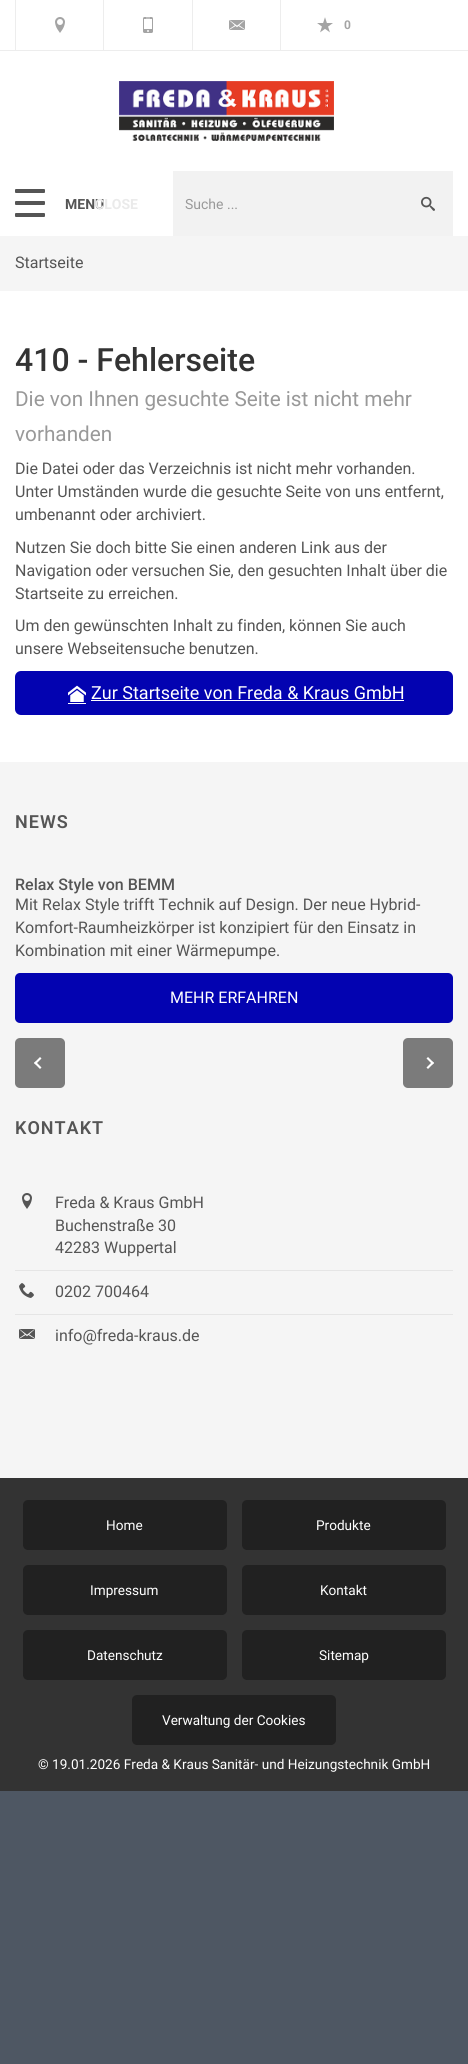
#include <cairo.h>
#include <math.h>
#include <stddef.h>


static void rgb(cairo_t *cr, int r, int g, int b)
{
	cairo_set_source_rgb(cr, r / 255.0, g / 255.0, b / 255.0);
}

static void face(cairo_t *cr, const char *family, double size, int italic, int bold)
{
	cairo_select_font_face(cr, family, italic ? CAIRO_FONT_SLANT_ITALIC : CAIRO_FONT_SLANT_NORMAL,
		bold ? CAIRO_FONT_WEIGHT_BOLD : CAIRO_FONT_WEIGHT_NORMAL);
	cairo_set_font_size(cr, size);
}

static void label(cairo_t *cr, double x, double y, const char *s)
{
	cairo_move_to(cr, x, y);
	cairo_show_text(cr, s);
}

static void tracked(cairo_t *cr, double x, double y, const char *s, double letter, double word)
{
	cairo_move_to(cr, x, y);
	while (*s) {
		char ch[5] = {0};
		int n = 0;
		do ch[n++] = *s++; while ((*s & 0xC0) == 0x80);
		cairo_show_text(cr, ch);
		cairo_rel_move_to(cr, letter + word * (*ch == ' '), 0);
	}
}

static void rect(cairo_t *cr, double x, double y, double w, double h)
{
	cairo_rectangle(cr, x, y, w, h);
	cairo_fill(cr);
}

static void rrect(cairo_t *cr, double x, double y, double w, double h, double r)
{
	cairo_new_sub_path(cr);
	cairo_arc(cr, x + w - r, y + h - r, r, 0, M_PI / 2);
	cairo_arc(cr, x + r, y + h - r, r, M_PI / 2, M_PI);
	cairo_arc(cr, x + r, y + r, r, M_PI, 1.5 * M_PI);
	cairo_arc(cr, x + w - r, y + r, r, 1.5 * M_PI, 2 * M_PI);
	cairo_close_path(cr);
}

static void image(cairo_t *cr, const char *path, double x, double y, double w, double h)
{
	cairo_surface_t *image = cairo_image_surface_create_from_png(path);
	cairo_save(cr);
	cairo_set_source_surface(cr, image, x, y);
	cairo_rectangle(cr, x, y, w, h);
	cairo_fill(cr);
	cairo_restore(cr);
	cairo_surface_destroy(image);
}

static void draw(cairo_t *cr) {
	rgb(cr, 78, 87, 99);
	cairo_paint(cr);
	rgb(cr, 255, 255, 255);
	rect(cr, 0, 0, 468, 50);
	rgb(cr, 237, 237, 237);
	rect(cr, 0, 50, 468, 1);
	rect(cr, 15, 0, 1, 50);
	image(cr, "image0.png", 55, 17, 10, 16);
	rect(cr, 103, 0, 1, 50);
	image(cr, "image1.png", 143, 17, 10, 16);
	rect(cr, 192, 0, 1, 50);
	image(cr, "image2.png", 229, 20, 16, 10);
	rect(cr, 280, 0, 1, 50);
	image(cr, "image3.png", 317, 17, 16, 16);
	face(cr, "Roboto", 12, 0, 1);
	rgb(cr, 164, 164, 164);
	label(cr, 344, 29, "0");
	rgb(cr, 255, 255, 255);
	rect(cr, 0, 51, 468, 185);
	image(cr, "image4.png", 119, 81, 215, 60);
	rgb(cr, 85, 85, 85);
	rrect(cr, 15, 189, 30, 4, 1);
	cairo_fill(cr);
	rrect(cr, 15, 201, 30, 4, 1);
	cairo_fill(cr);
	rrect(cr, 15, 213, 30, 4, 1);
	cairo_fill(cr);
	face(cr, "Roboto", 14, 0, 1);
	label(cr, 65, 209, "MENU");
	rgb(cr, 234, 234, 234);
	label(cr, 95, 209, "CLOSE");
	rgb(cr, 242, 242, 242);
	rect(cr, 173, 171, 280, 65);
	face(cr, "Roboto", 14, 0, 0);
	rgb(cr, 153, 153, 153);
	label(cr, 185, 209, "Suche ...");
	image(cr, "image5.png", 421, 196, 14, 15);
	rgb(cr, 245, 245, 245);
	rect(cr, 0, 236, 468, 55);
	face(cr, "Roboto", 16, 0, 0);
	rgb(cr, 85, 85, 85);
	label(cr, 15, 268, "Startseite");
	rgb(cr, 255, 255, 255);
	rect(cr, 0, 291, 468, 471);
	face(cr, "Roboto Medium", 32, 0, 0);
	rgb(cr, 51, 51, 51);
	label(cr, 15, 371, "410 - Fehlerseite");
	face(cr, "Roboto", 20.75, 0, 0);
	rgb(cr, 153, 153, 153);
	label(cr, 15, 406, "Die von Ihnen gesuchte Seite ist nicht mehr");
	label(cr, 15, 441, "vorhanden");
	face(cr, "Roboto", 16, 0, 0);
	rgb(cr, 85, 85, 85);
	label(cr, 15, 474, "Die Datei oder das Verzeichnis ist nicht mehr vorhanden.");
	label(cr, 15, 497, "Unter Umständen wurde die gesuchte Seite von uns entfernt,");
	label(cr, 15, 520, "umbenannt oder archiviert.");
	label(cr, 15, 553, "Nutzen Sie doch bitte Sie einen anderen Link aus der");
	label(cr, 15, 576, "Navigation oder versuchen Sie, den gesuchten Inhalt über die");
	label(cr, 15, 599, "Startseite zu erreichen.");
	label(cr, 15, 631, "Um den gewünschten Inhalt zu finden, können Sie auch");
	label(cr, 15, 654, "unsere Webseitensuche benutzen.");
	rgb(cr, 3, 3, 177);
	rrect(cr, 15, 671, 438, 44, 6);
	cairo_fill(cr);
	image(cr, "image6.png", 68, 685, 18, 17);
	face(cr, "Roboto", 18, 0, 0);
	rgb(cr, 255, 255, 255);
	label(cr, 91, 699, "Zur Startseite von Freda & Kraus GmbH");
	rect(cr, 91, 700, 313, 1);
	rect(cr, 68, 703, 18, 1);
	rgb(cr, 245, 245, 245);
	rect(cr, 0, 762, 468, 716);
	face(cr, "Roboto SemiBold", 18, 0, 0);
	rgb(cr, 85, 85, 85);
	tracked(cr, 15, 828, "NEWS", 1, 0);
	face(cr, "Roboto Medium", 16, 0, 0);
	label(cr, 15, 890, "Relax Style von BEMM");
	face(cr, "Roboto", 16, 0, 0);
	label(cr, 15, 910, "Mit Relax Style trifft Technik auf Design. Der neue Hybrid-");
	label(cr, 15, 933, "Komfort-Raumheizkörper ist konzipiert für den Einsatz in");
	label(cr, 15, 956, "Kombination mit einer Wärmepumpe.");
	rgb(cr, 3, 3, 177);
	rrect(cr, 15, 973, 438, 50, 5);
	cairo_fill(cr);
	rgb(cr, 255, 255, 255);
	label(cr, 170, 1003, "MEHR ERFAHREN");
	rgb(cr, 123, 123, 123);
	rrect(cr, 15, 1038, 50, 50, 5);
	cairo_fill(cr);
	rgb(cr, 255, 255, 255);
	cairo_new_path(cr);
	cairo_move_to(cr, 35.5, 1061.5);
	cairo_line_to(cr, 41.5, 1067.5);
	cairo_line_to(cr, 40, 1069);
	cairo_line_to(cr, 34, 1063);
	cairo_close_path(cr);
	cairo_fill(cr);
	cairo_new_path(cr);
	cairo_move_to(cr, 40, 1057);
	cairo_line_to(cr, 41.5, 1058.5);
	cairo_line_to(cr, 35.5, 1064.5);
	cairo_line_to(cr, 34, 1063);
	cairo_close_path(cr);
	cairo_fill(cr);
	rgb(cr, 123, 123, 123);
	rrect(cr, 403, 1038, 50, 50, 5);
	cairo_fill(cr);
	rgb(cr, 255, 255, 255);
	cairo_new_path(cr);
	cairo_move_to(cr, 428, 1057);
	cairo_line_to(cr, 434, 1063);
	cairo_line_to(cr, 432.5, 1064.5);
	cairo_line_to(cr, 426.5, 1058.5);
	cairo_close_path(cr);
	cairo_fill(cr);
	cairo_new_path(cr);
	cairo_move_to(cr, 432.5, 1061.5);
	cairo_line_to(cr, 434, 1063);
	cairo_line_to(cr, 428, 1069);
	cairo_line_to(cr, 426.5, 1067.5);
	cairo_close_path(cr);
	cairo_fill(cr);
	face(cr, "Roboto SemiBold", 18, 0, 0);
	rgb(cr, 85, 85, 85);
	tracked(cr, 15, 1134, "KONTAKT", 1, 0);
	rgb(cr, 229, 229, 229);
	rect(cr, 15, 1270, 438, 1);
	image(cr, "image7.png", 22, 1193, 10, 16);
	face(cr, "Roboto", 16, 0, 0);
	rgb(cr, 85, 85, 85);
	label(cr, 55, 1208, "Freda & Kraus GmbH");
	label(cr, 55, 1231, "Buchenstraße 30");
	label(cr, 55, 1253, "42283 Wuppertal");
	rgb(cr, 229, 229, 229);
	rect(cr, 15, 1314, 438, 1);
	image(cr, "image8.png", 19, 1283, 15, 15);
	rgb(cr, 85, 85, 85);
	label(cr, 55, 1297, "0202 700464");
	image(cr, "image9.png", 19, 1329, 16, 10);
	label(cr, 55, 1341, "info@freda-kraus.de");
	rgb(cr, 51, 51, 51);
	rect(cr, 0, 1478, 468, 313);
	rgb(cr, 33, 33, 33);
	rrect(cr, 23, 1500, 204, 50, 5);
	cairo_fill(cr);
	face(cr, "Roboto", 13.6, 0, 0);
	rgb(cr, 255, 255, 255);
	label(cr, 106, 1530, "Home");
	rgb(cr, 33, 33, 33);
	rrect(cr, 242, 1500, 204, 50, 5);
	cairo_fill(cr);
	rgb(cr, 255, 255, 255);
	label(cr, 316, 1530, "Produkte");
	rgb(cr, 33, 33, 33);
	rrect(cr, 23, 1565, 204, 50, 5);
	cairo_fill(cr);
	rgb(cr, 255, 255, 255);
	label(cr, 90, 1595, "Impressum");
	rgb(cr, 33, 33, 33);
	rrect(cr, 242, 1565, 204, 50, 5);
	cairo_fill(cr);
	rgb(cr, 255, 255, 255);
	label(cr, 320, 1595, "Kontakt");
	rgb(cr, 33, 33, 33);
	rrect(cr, 23, 1630, 204, 50, 5);
	cairo_fill(cr);
	rgb(cr, 255, 255, 255);
	label(cr, 87, 1660, "Datenschutz");
	rgb(cr, 33, 33, 33);
	rrect(cr, 242, 1630, 204, 50, 5);
	cairo_fill(cr);
	rgb(cr, 255, 255, 255);
	label(cr, 319, 1660, "Sitemap");
	rgb(cr, 33, 33, 33);
	rrect(cr, 132, 1695, 204, 50, 5);
	cairo_fill(cr);
	rgb(cr, 255, 255, 255);
	label(cr, 162, 1725, "Verwaltung der Cookies");
	label(cr, 38, 1769, "© 19.01.2026 Freda & Kraus Sanitär- und Heizungstechnik GmbH");
}

int main(void) {
	cairo_surface_t *surface = cairo_image_surface_create(CAIRO_FORMAT_RGB24, 468, 2064);
	cairo_t *cr = cairo_create(surface);
	cairo_font_options_t *options = cairo_font_options_create();
	cairo_font_options_set_hint_metrics(options, CAIRO_HINT_METRICS_OFF);
	cairo_font_options_set_hint_style(options, CAIRO_HINT_STYLE_NONE);
	cairo_set_font_options(cr, options);
	cairo_set_miter_limit(cr, 4);
	draw(cr);
	cairo_surface_write_to_png(surface, "render.png");
	cairo_font_options_destroy(options);
	cairo_destroy(cr);
	cairo_surface_destroy(surface);
	return 0;
}
